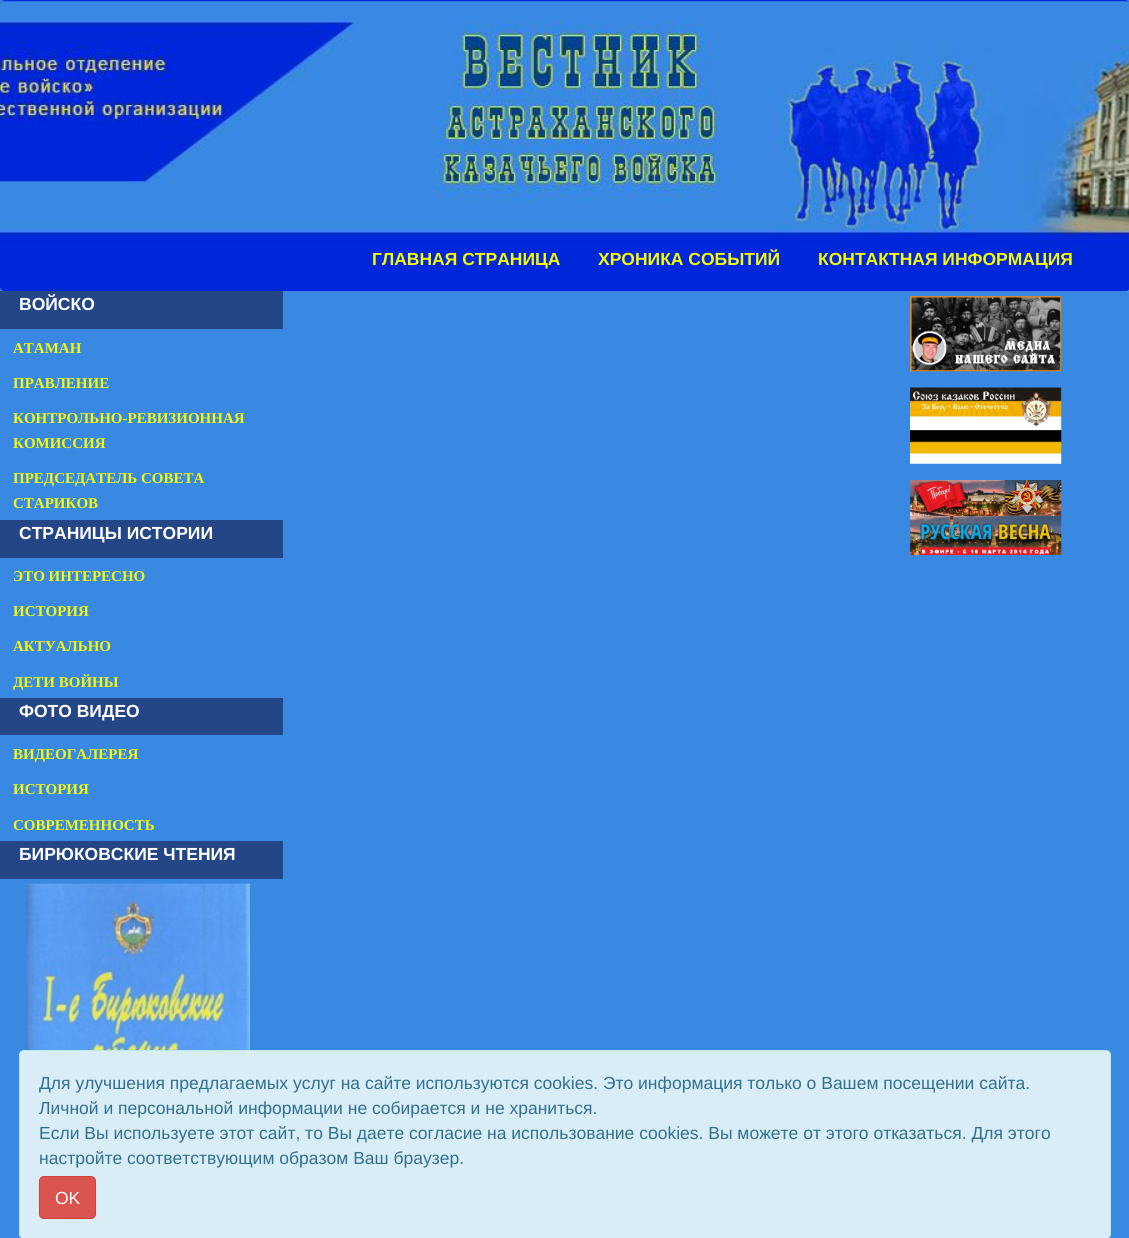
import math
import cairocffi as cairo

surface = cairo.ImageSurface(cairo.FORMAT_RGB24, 1129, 1238)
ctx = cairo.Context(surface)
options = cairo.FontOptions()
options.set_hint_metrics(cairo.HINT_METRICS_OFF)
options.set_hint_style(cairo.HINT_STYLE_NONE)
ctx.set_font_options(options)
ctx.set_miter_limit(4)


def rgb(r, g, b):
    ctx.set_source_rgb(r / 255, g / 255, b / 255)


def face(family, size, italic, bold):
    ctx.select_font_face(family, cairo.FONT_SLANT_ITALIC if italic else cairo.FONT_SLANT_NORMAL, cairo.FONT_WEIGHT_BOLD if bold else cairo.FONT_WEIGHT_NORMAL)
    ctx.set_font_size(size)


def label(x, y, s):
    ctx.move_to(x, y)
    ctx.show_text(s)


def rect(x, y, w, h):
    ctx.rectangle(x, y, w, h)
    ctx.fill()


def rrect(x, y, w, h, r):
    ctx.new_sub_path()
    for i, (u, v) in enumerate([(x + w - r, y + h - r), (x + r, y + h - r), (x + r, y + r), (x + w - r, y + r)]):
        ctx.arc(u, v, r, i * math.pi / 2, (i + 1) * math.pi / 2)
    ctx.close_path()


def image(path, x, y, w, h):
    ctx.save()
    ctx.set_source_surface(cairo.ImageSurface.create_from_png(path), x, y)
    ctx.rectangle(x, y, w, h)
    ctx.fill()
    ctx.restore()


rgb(57, 137, 226)
ctx.paint()
rgb(0, 39, 218)
rrect(0, 0, 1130, 291, 5)
ctx.fill()
image('image0.png', 0, 1, 1129, 291)
face('Liberation Sans', 17.5, 0, 1)
rgb(245, 248, 10)
label(372, 265, 'ГЛАВНАЯ СТРАНИЦА')
label(598, 265, 'ХРОНИКА СОБЫТИЙ')
label(818, 265, 'КОНТАКТНАЯ ИНФОРМАЦИЯ')
rgb(36, 70, 134)
rect(0, 291, 283, 38)
rgb(255, 255, 255)
label(19, 310, 'ВОЙСКО')
face('Liberation Serif', 15, 0, 1)
rgb(245, 248, 10)
label(13, 353, 'АТАМАН')
label(13, 388, 'ПРАВЛЕНИЕ')
label(13, 423, 'КОНТРОЛЬНО-РЕВИЗИОННАЯ')
label(13, 448, 'КОМИССИЯ')
label(13, 483, 'ПРЕДСЕДАТЕЛЬ СОВЕТА')
label(13, 508, 'СТАРИКОВ')
rgb(36, 70, 134)
rect(0, 520, 283, 38)
face('Liberation Sans', 17.5, 0, 1)
rgb(255, 255, 255)
label(19, 539, 'СТРАНИЦЫ ИСТОРИИ')
face('Liberation Serif', 15, 0, 1)
rgb(245, 248, 10)
label(13, 581, 'ЭТО ИНТЕРЕСНО')
label(13, 616, 'ИСТОРИЯ')
label(13, 651, 'АКТУАЛЬНО')
label(13, 687, 'ДЕТИ ВОЙНЫ')
rgb(36, 70, 134)
rect(0, 698, 283, 37)
face('Liberation Sans', 17.5, 0, 1)
rgb(255, 255, 255)
label(19, 717, 'ФОТО ВИДЕО')
face('Liberation Serif', 15, 0, 1)
rgb(245, 248, 10)
label(13, 759, 'ВИДЕОГАЛЕРЕЯ')
label(13, 794, 'ИСТОРИЯ')
label(13, 830, 'СОВРЕМЕННОСТЬ')
rgb(36, 70, 134)
rect(0, 841, 283, 38)
face('Liberation Sans', 17.5, 0, 1)
rgb(255, 255, 255)
label(19, 860, 'БИРЮКОВСКИЕ ЧТЕНИЯ')
image('image1.png', 26, 883, 224, 167)
image('image2.png', 910, 296, 152, 76)
image('image3.png', 910, 387, 152, 77)
image('image4.png', 910, 480, 152, 75)
rgb(217, 237, 247)
rrect(19.5, 1050.5, 1091, 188, 4.5)
ctx.fill_preserve()
rgb(188, 232, 241)
ctx.set_line_width(1)
ctx.stroke()
face('Liberation Sans', 17.5, 0, 0)
rgb(49, 112, 143)
label(39, 1089, 'Для улучшения предлагаемых услуг на сайте используются cookies. Это информация только о Вашем посещении сайта.')
label(39, 1114, 'Личной и персональной информации не собирается и не храниться.')
label(39, 1139, 'Если Вы используете этот сайт, то Вы даете согласие на использование cookies. Вы можете от этого отказаться. Для этого')
label(39, 1164, 'настройте соответствующим образом Ваш браузер.')
rgb(217, 83, 79)
rrect(39.5, 1176.5, 56, 42, 4.5)
ctx.fill_preserve()
rgb(212, 63, 58)
ctx.stroke()
rgb(255, 255, 255)
label(55, 1204, 'OK')
surface.write_to_png('render.png')
